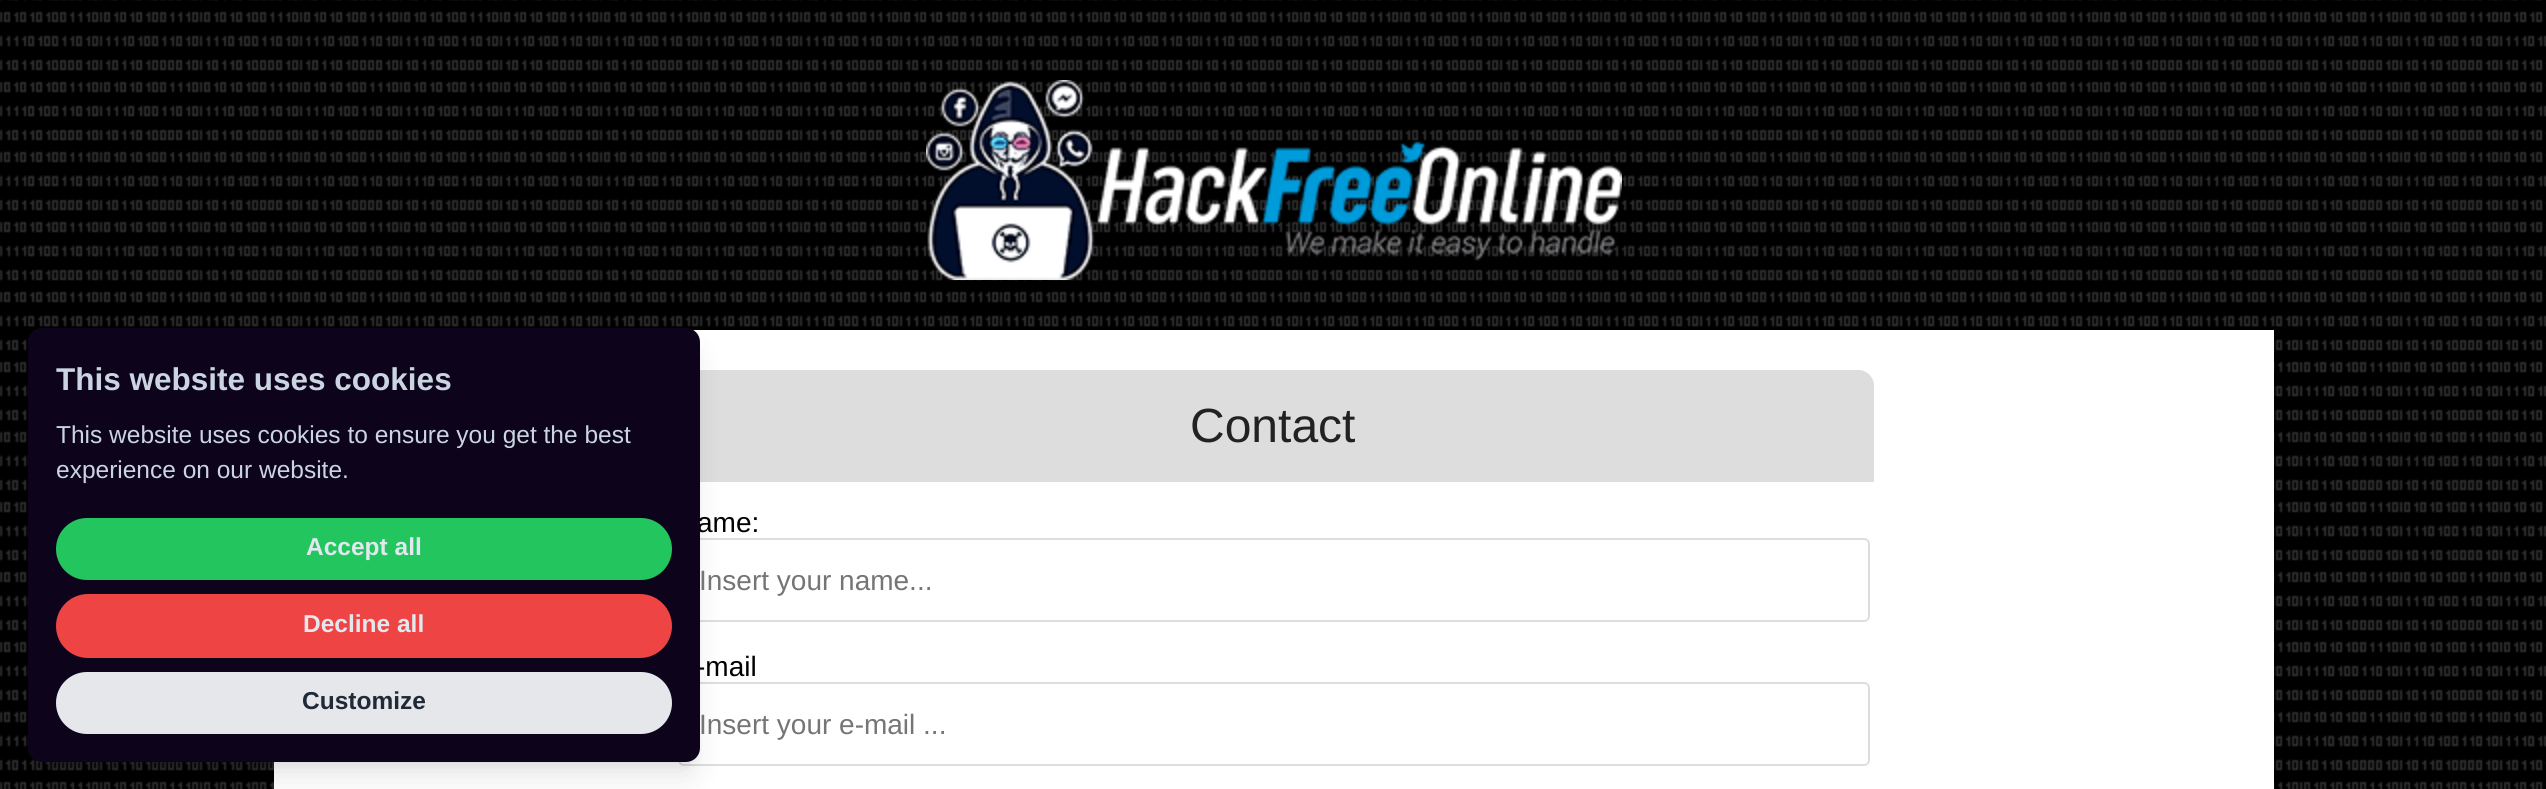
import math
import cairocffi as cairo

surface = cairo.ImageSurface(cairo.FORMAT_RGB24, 2546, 789)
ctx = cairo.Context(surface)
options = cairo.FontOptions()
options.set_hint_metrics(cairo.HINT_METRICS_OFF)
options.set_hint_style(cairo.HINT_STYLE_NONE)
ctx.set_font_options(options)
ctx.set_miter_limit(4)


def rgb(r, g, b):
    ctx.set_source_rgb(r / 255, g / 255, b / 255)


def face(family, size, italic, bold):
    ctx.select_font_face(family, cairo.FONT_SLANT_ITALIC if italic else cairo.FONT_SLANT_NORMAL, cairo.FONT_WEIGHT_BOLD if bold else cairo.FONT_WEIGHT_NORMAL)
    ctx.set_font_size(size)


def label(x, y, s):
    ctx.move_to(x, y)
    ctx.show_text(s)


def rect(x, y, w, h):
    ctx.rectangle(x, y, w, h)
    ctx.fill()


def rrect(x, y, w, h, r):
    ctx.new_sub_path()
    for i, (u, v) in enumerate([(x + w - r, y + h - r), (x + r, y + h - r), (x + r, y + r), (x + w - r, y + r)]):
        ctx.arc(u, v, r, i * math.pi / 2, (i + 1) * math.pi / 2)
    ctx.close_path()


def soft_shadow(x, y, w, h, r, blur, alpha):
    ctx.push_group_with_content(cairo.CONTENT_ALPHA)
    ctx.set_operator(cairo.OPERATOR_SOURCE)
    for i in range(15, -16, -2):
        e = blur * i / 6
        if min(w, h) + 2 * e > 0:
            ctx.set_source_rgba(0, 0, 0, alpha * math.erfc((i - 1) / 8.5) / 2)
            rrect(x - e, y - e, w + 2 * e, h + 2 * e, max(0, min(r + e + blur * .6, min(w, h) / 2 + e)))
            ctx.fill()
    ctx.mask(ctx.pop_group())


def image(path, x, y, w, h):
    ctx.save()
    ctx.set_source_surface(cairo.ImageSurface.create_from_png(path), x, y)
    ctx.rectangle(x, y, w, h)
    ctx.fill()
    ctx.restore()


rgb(255, 255, 255)
ctx.paint()
image('image0.png', 0, 0, 2546, 789)
image('image1.png', 926, 80, 696, 200)
rgb(255, 255, 255)
rect(274, 330, 2000, 459)
rgb(221, 221, 221)
ctx.new_path()
ctx.move_to(690, 370)
ctx.line_to(1858, 370)
ctx.curve_to(1867, 370, 1874, 377, 1874, 386)
ctx.line_to(1874, 482)
ctx.line_to(674, 482)
ctx.line_to(674, 386)
ctx.curve_to(674, 377, 681, 370, 690, 370)
ctx.close_path()
ctx.fill()
rrect(679, 539, 1190, 82, 5)
ctx.stroke()
rrect(679, 683, 1190, 82, 5)
ctx.stroke()
rgb(0, 0, 0)
soft_shadow(36, 344, 656, 418, 6, 6, 0.1)
soft_shadow(34, 354, 660, 422, 8, 15, 0.1)
face('Liberation Sans', 28, 0, 0)
rgb(0, 0, 0)
label(697, 532, 'ame:')
label(696, 676, '-mail')
rgb(13, 4, 27)
rrect(28, 328, 672, 434, 14)
ctx.fill()
face('Liberation Sans', 31.5, 0, 1)
rgb(203, 213, 225)
label(56, 390, 'This website uses cookies')
face('Liberation Sans', 24.5, 0, 0)
label(56, 443, 'This website uses cookies to ensure you get the best')
label(56, 478, 'experience on our website.')
rgb(34, 197, 94)
rrect(56, 518, 616, 62, 31)
ctx.fill()
face('Liberation Sans', 24.5, 0, 1)
rgb(226, 232, 240)
label(306, 555, 'Accept all')
rgb(239, 68, 68)
rrect(56, 594, 616, 64, 32)
ctx.fill()
rgb(226, 232, 240)
label(303, 632, 'Decline all')
rgb(229, 231, 235)
rrect(56, 672, 616, 62, 31)
ctx.fill()
rgb(31, 41, 55)
label(302, 709, 'Customize')
face('Liberation Sans', 48, 0, 0)
rgb(34, 34, 34)
label(1190, 442, 'Contact')
face('Liberation Sans', 28, 0, 0)
rgb(117, 117, 117)
label(699, 590, 'Insert your name...')
label(699, 734, 'Insert your e-mail ...')
surface.write_to_png('render.png')
